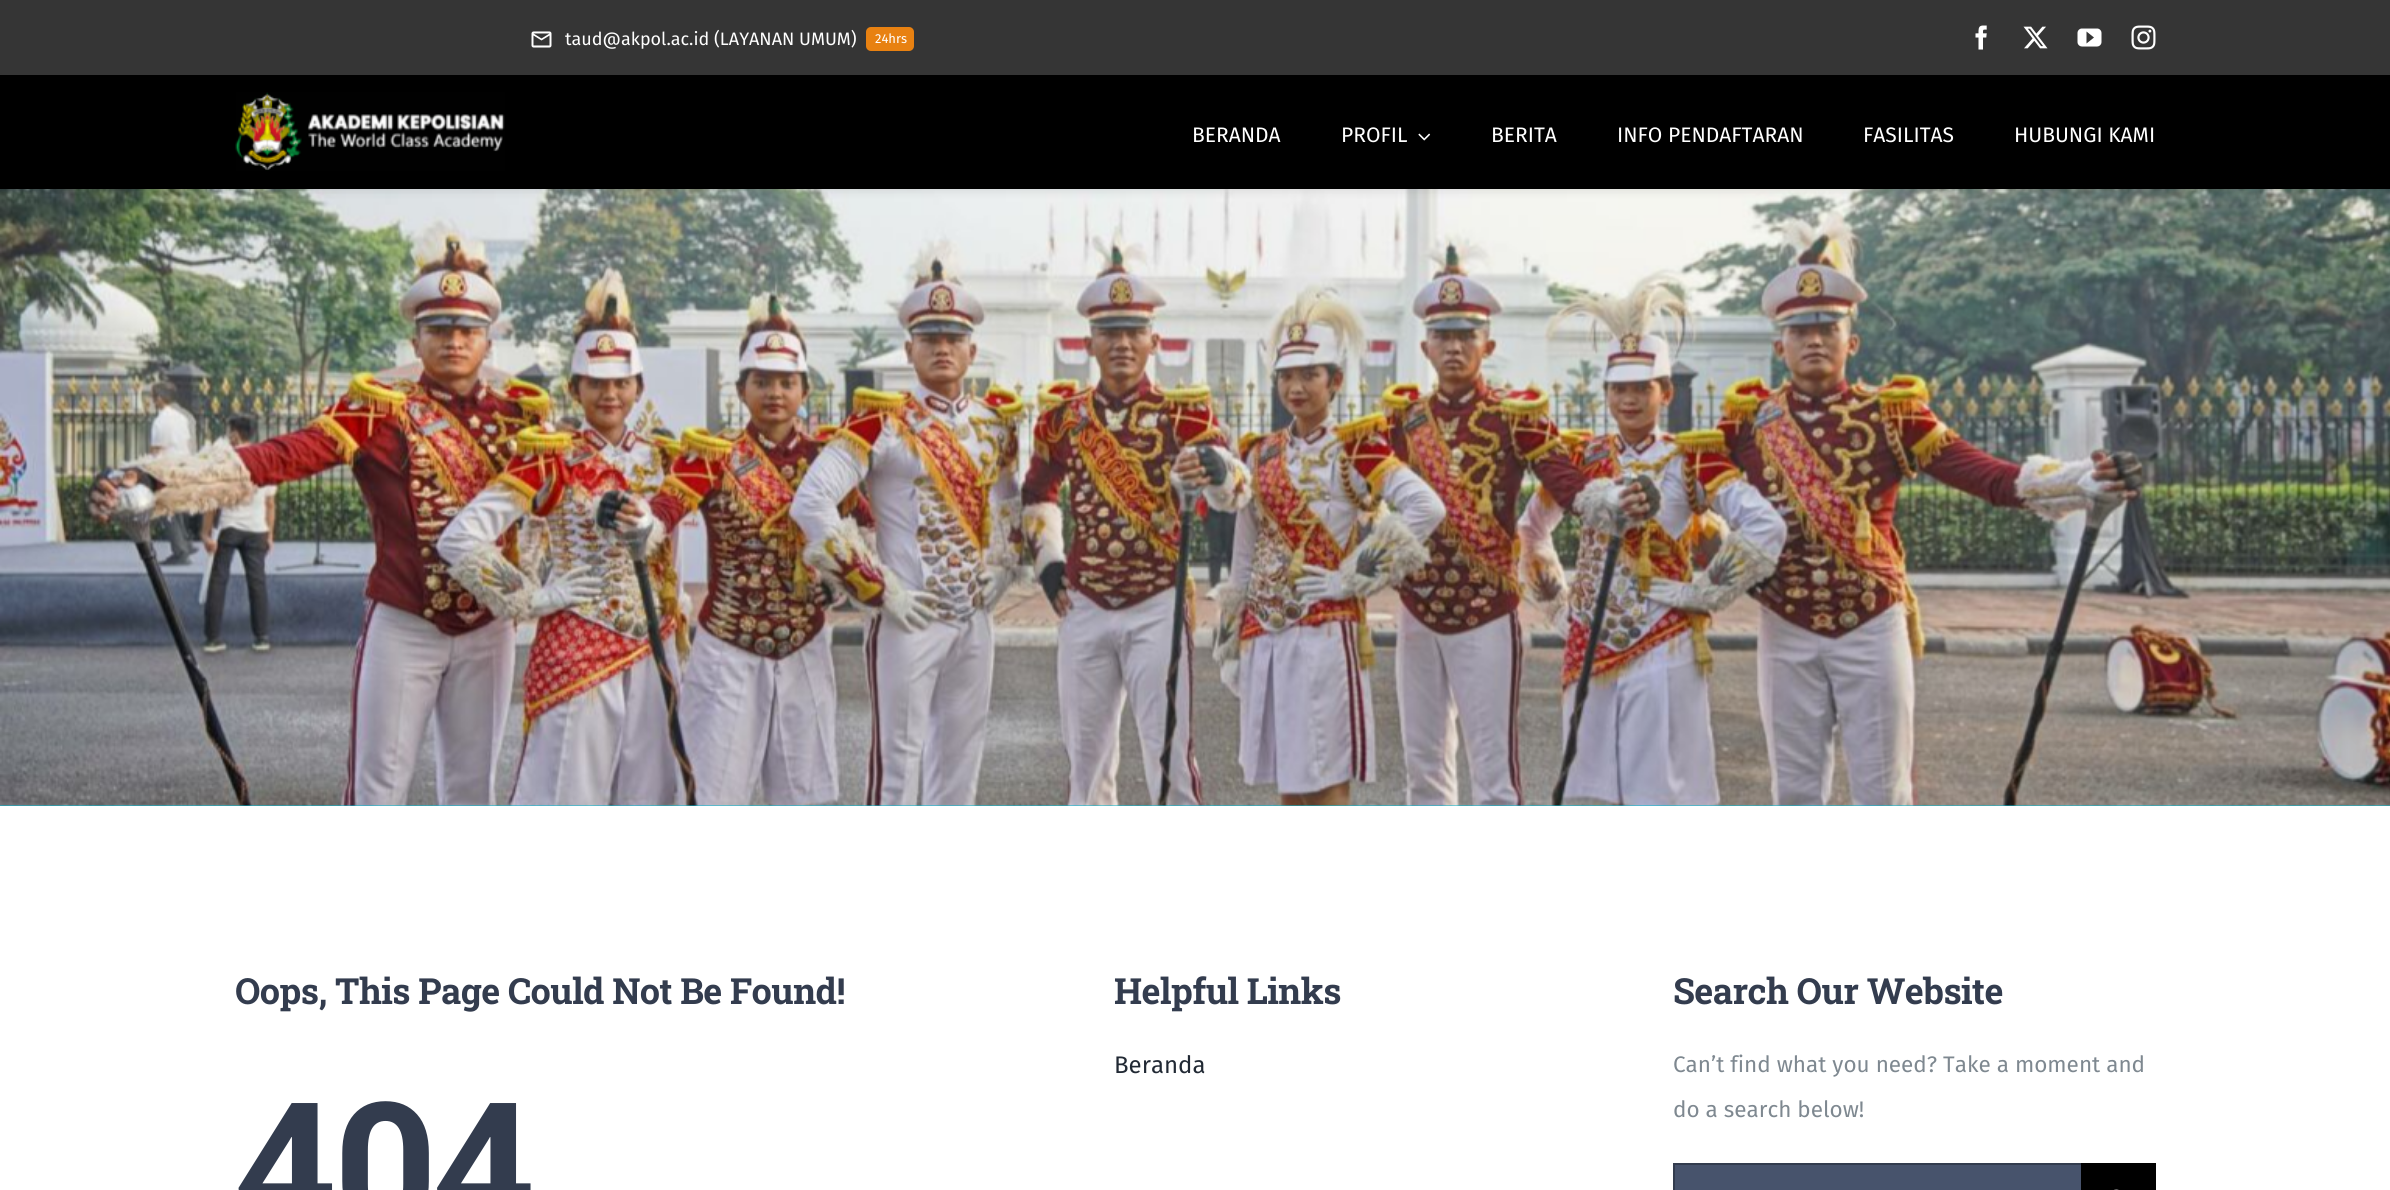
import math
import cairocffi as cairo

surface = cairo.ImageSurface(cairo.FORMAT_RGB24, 2390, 1190)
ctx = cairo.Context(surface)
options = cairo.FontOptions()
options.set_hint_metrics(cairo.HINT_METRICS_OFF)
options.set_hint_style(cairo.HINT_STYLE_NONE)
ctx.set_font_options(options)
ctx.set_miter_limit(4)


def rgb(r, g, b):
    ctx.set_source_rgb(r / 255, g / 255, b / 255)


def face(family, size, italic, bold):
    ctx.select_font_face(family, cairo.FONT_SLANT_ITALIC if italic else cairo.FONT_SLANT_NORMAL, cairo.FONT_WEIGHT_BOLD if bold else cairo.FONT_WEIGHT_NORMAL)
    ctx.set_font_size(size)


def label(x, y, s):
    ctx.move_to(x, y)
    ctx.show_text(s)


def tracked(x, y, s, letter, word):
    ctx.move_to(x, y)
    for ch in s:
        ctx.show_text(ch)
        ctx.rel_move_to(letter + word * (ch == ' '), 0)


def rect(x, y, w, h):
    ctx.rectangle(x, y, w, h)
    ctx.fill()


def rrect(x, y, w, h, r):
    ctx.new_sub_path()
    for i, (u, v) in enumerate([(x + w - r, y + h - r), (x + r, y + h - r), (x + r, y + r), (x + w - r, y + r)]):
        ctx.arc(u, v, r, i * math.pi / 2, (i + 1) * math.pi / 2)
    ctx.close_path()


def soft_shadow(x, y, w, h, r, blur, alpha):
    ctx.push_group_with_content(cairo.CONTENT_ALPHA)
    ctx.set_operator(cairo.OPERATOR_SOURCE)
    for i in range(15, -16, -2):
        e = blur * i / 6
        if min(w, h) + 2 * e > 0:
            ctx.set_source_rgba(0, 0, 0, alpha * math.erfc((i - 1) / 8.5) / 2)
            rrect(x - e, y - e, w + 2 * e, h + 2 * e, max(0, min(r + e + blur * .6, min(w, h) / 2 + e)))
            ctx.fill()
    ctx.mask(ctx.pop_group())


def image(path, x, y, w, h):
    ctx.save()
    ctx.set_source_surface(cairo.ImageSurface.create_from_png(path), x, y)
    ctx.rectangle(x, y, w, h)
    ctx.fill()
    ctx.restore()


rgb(255, 255, 255)
ctx.paint()
rgb(53, 53, 53)
rect(0, 0, 2390, 75)
image('image0.png', 531, 31, 21, 17)
face('Fira Sans', 18, 0, 0)
rgb(255, 255, 255)
label(565, 45, 'taud@akpol.ac.id (LAYANAN UMUM)')
rgb(232, 129, 17)
rrect(866, 27, 48, 24, 5)
ctx.fill()
face('Fira Sans', 13, 0, 0)
rgb(255, 255, 255)
label(875, 43, '24hrs')
image('image1.png', 1975, 25, 12, 25)
image('image2.png', 2023, 26, 25, 23)
image('image3.png', 2077, 28, 25, 19)
image('image4.png', 2131, 25, 25, 25)
rgb(0, 188, 212)
rect(0, 805, 2390, 1)
image('image7.png', 0, 189, 2390, 617)
rgb(33, 33, 33)
soft_shadow(0, 78, 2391, 114, 0, 4, 0.1)
rgb(0, 0, 0)
rect(0, 75, 2390, 114)
image('image5.png', 235, 92, 270, 79)
face('Fira Sans', 21, 0, 0)
rgb(255, 255, 255)
label(1192, 142, 'BERANDA')
label(1341, 142, 'PROFIL')
image('image6.png', 1418, 133, 13, 8)
label(1491, 142, 'BERITA')
label(1617, 142, 'INFO PENDAFTARAN')
label(1863, 142, 'FASILITAS')
label(2014, 142, 'HUBUNGI KAMI')
face('Roboto Slab', 36, 0, 1)
rgb(51, 60, 78)
tracked(235, 1004, 'Oops, This Page Could Not Be Found!', -0.55, 0)
face('Roboto Slab', 180, 0, 1)
tracked(235, 1231, '404', -3, 0)
face('Roboto Slab', 36, 0, 1)
tracked(1114, 1004, 'Helpful Links', -0.55, 0)
face('Fira Sans', 24, 0, 0)
rgb(33, 41, 52)
label(1114, 1073, 'Beranda')
face('Roboto Slab', 36, 0, 1)
rgb(51, 60, 78)
tracked(1673, 1004, 'Search Our Website', -0.55, 0)
face('Fira Sans', 22.5, 0, 0)
rgb(126, 136, 144)
label(1673, 1072, 'Can’t find what you need? Take a moment and')
label(1673, 1117, 'do a search below!')
rgb(71, 83, 108)
rect(1675, 1165, 406, 25)
rgb(51, 60, 78)
rect(1673, 1163, 408, 2)
rect(1673, 1163, 2, 27)
rgb(0, 0, 0)
rect(2081, 1163, 75, 27)
image('image8.png', 2114, 1189, 5, 1)
surface.write_to_png('render.png')
